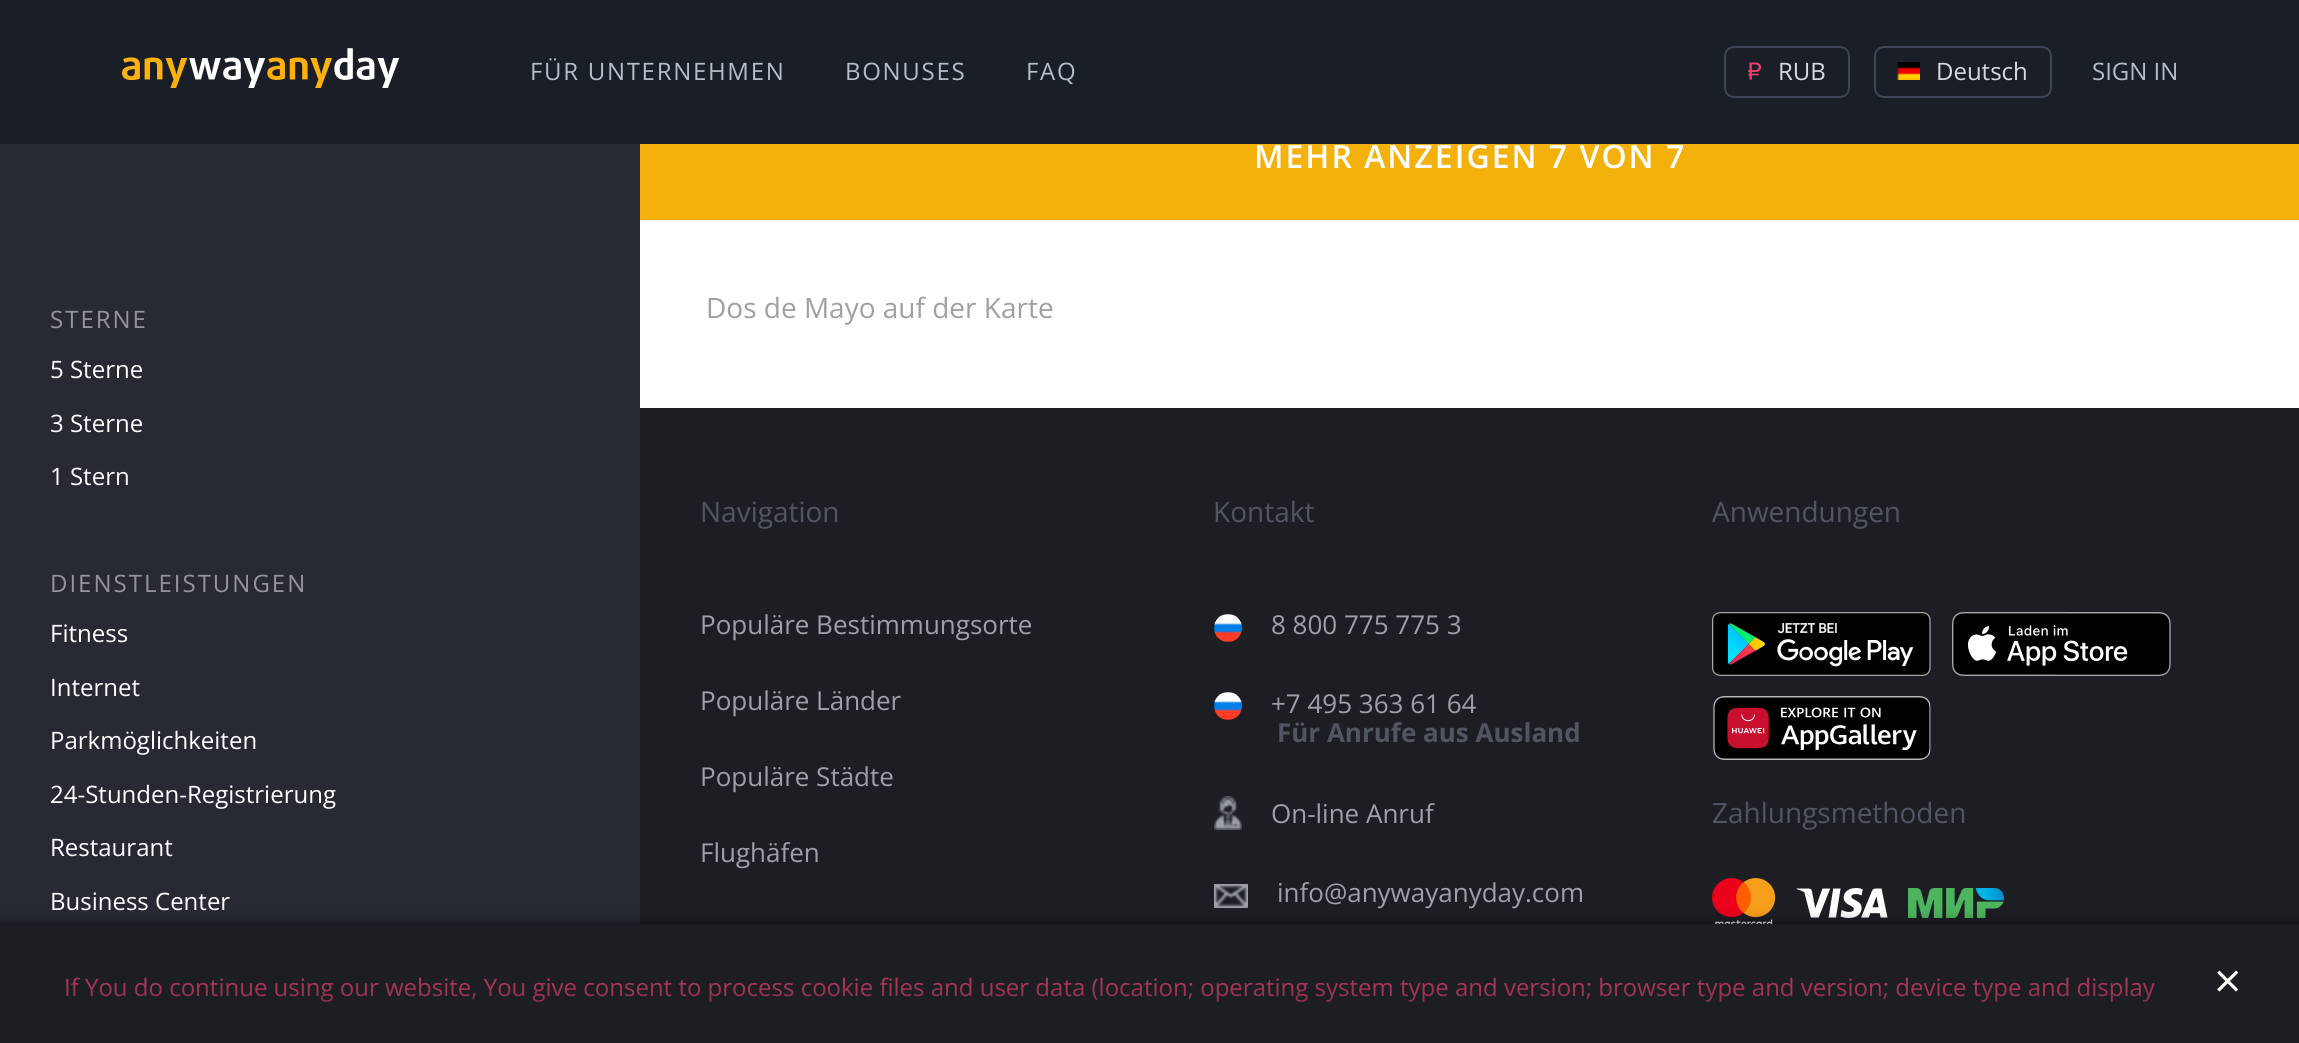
import math
import cairocffi as cairo

surface = cairo.ImageSurface(cairo.FORMAT_RGB24, 2299, 1043)
ctx = cairo.Context(surface)
options = cairo.FontOptions()
options.set_hint_metrics(cairo.HINT_METRICS_OFF)
options.set_hint_style(cairo.HINT_STYLE_NONE)
ctx.set_font_options(options)
ctx.set_miter_limit(4)


def rgb(r, g, b):
    ctx.set_source_rgb(r / 255, g / 255, b / 255)


def face(family, size, italic, bold):
    ctx.select_font_face(family, cairo.FONT_SLANT_ITALIC if italic else cairo.FONT_SLANT_NORMAL, cairo.FONT_WEIGHT_BOLD if bold else cairo.FONT_WEIGHT_NORMAL)
    ctx.set_font_size(size)


def label(x, y, s):
    ctx.move_to(x, y)
    ctx.show_text(s)


def tracked(x, y, s, letter, word):
    ctx.move_to(x, y)
    for ch in s:
        ctx.show_text(ch)
        ctx.rel_move_to(letter + word * (ch == ' '), 0)


def rect(x, y, w, h):
    ctx.rectangle(x, y, w, h)
    ctx.fill()


def rrect(x, y, w, h, r):
    ctx.new_sub_path()
    for i, (u, v) in enumerate([(x + w - r, y + h - r), (x + r, y + h - r), (x + r, y + r), (x + w - r, y + r)]):
        ctx.arc(u, v, r, i * math.pi / 2, (i + 1) * math.pi / 2)
    ctx.close_path()


def soft_shadow(x, y, w, h, r, blur, alpha):
    ctx.push_group_with_content(cairo.CONTENT_ALPHA)
    ctx.set_operator(cairo.OPERATOR_SOURCE)
    for i in range(15, -16, -2):
        e = blur * i / 6
        if min(w, h) + 2 * e > 0:
            ctx.set_source_rgba(0, 0, 0, alpha * math.erfc((i - 1) / 8.5) / 2)
            rrect(x - e, y - e, w + 2 * e, h + 2 * e, max(0, min(r + e + blur * .6, min(w, h) / 2 + e)))
            ctx.fill()
    ctx.mask(ctx.pop_group())


def image(path, x, y, w, h):
    ctx.save()
    ctx.set_source_surface(cairo.ImageSurface.create_from_png(path), x, y)
    ctx.rectangle(x, y, w, h)
    ctx.fill()
    ctx.restore()


rgb(39, 42, 51)
ctx.paint()
rgb(25, 30, 39)
rect(0, 0, 2299, 144)
image('image0.png', 122, 48, 278, 40)
face('Open Sans', 24, 0, 0)
rgb(180, 189, 201)
tracked(530, 80, 'FÜR UNTERNEHMEN', 1.7, 0)
tracked(845, 80, 'BONUSES', 1.7, 0)
tracked(1026, 80, 'FAQ', 1.7, 0)
rrect(1725, 47, 124, 50, 9)
rgb(63, 69, 84)
ctx.stroke()
image('image1.png', 1748, 62, 13, 18)
rgb(214, 217, 226)
label(1778, 80, 'RUB')
rrect(1875, 47, 176, 50, 9)
rgb(63, 69, 84)
ctx.stroke()
image('image2.png', 1897, 62, 23, 18)
rgb(214, 217, 226)
label(1936, 80, 'Deutsch')
rgb(180, 189, 201)
label(2092, 80, 'SIGN IN')
rgb(147, 149, 153)
tracked(50, 328, 'STERNE', 2, 0)
rgb(255, 255, 255)
label(50, 378, '5 Sterne')
label(50, 432, '3 Sterne')
label(50, 485, '1 Stern')
rgb(147, 149, 153)
tracked(50, 592, 'DIENSTLEISTUNGEN', 2, 0)
rgb(255, 255, 255)
label(50, 642, 'Fitness')
label(50, 696, 'Internet')
label(50, 749, 'Parkmöglichkeiten')
label(50, 803, '24-Stunden-Registrierung')
label(50, 856, 'Restaurant')
label(50, 910, 'Business Center')
rect(640, 220, 1659, 188)
rgb(245, 177, 11)
rect(640, 144, 1659, 76)
face('Open Sans SemiBold', 32, 0, 0)
rgb(255, 255, 255)
tracked(1254, 168, 'MEHR ANZEIGEN 7 VON 7', 2, 0)
face('Open Sans', 28, 0, 0)
rgb(157, 160, 166)
label(706, 318, 'Dos de Mayo auf der Karte')
rgb(28, 30, 36)
rect(640, 408, 1659, 516)
rgb(80, 86, 97)
label(700, 522, 'Navigation')
face('Open Sans', 26, 0, 0)
rgb(157, 160, 166)
label(700, 634, 'Populäre Bestimmungsorte')
label(700, 710, 'Populäre Länder')
label(700, 786, 'Populäre Städte')
label(700, 862, 'Flughäfen')
face('Open Sans', 28, 0, 0)
rgb(80, 86, 97)
label(1213, 522, 'Kontakt')
image('image3.png', 1214, 614, 28, 28)
face('Open Sans', 26, 0, 0)
rgb(157, 160, 166)
label(1271, 634, '8 800 775 775 3')
image('image3.png', 1214, 692, 28, 28)
label(1271, 713, '+7 495 363 61 64')
face('Open Sans', 26, 0, 1)
rgb(80, 86, 97)
label(1277, 742, 'Für Anrufe aus Ausland')
face('Open Sans', 28, 0, 0)
label(1712, 522, 'Anwendungen')
image('image4.png', 1712, 612, 219, 64)
image('image5.png', 1952, 612, 219, 64)
image('image6.png', 1713, 696, 218, 64)
image('image7.png', 1214, 796, 28, 34)
face('Open Sans', 26, 0, 0)
rgb(157, 160, 166)
label(1271, 823, 'On-line Anruf')
image('image8.png', 1214, 884, 34, 24)
label(1277, 902, 'info@anywayanyday.com')
face('Open Sans', 28, 0, 0)
rgb(80, 86, 97)
label(1712, 823, 'Zahlungsmethoden')
image('image9.png', 1712, 878, 64, 46)
image('image10.png', 1796, 888, 92, 30)
image('image11.png', 1908, 888, 96, 30)
rgb(0, 0, 0)
soft_shadow(0, 924, 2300, 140, 0, 7, 0.6)
rgb(28, 30, 36)
rect(0, 924, 2299, 119)
face('Open Sans', 24, 0, 0)
rgb(238, 64, 112)
label(64, 996, 'If You do continue using our website, You give consent to process cookie files and user data (location; operating system type and version; browser type and version; device type and display')
face('Open Sans', 48, 0, 0)
rgb(255, 255, 255)
label(2214, 998, '×')
gradient = cairo.LinearGradient(1150, 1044, 1150, 944)
gradient.add_color_stop_rgba(0, 0.11, 0.118, 0.141, 0.8)
gradient.add_color_stop_rgba(1, 0.11, 0.118, 0.141, 0)
ctx.set_source(gradient)
rect(66, 977, 2089, 25)
surface.write_to_png('render.png')
